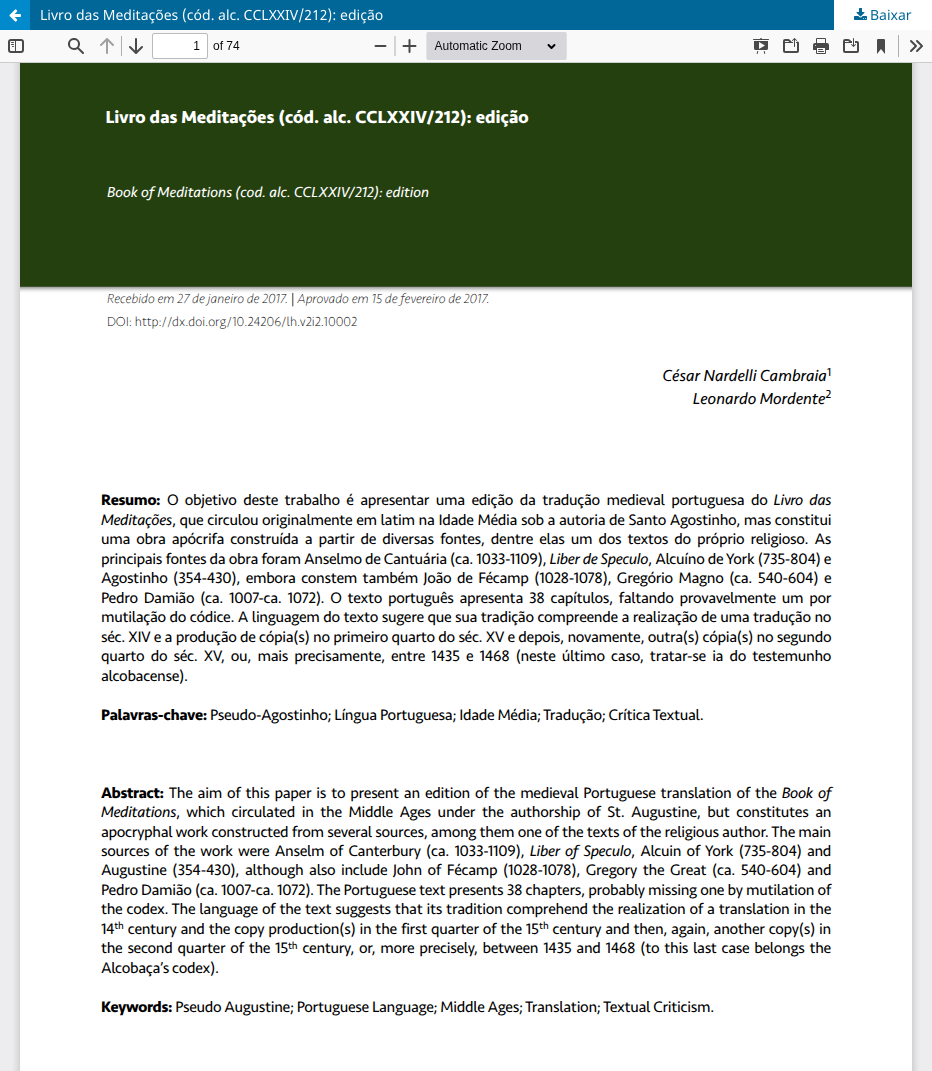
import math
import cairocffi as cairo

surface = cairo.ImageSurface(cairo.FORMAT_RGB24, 932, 1071)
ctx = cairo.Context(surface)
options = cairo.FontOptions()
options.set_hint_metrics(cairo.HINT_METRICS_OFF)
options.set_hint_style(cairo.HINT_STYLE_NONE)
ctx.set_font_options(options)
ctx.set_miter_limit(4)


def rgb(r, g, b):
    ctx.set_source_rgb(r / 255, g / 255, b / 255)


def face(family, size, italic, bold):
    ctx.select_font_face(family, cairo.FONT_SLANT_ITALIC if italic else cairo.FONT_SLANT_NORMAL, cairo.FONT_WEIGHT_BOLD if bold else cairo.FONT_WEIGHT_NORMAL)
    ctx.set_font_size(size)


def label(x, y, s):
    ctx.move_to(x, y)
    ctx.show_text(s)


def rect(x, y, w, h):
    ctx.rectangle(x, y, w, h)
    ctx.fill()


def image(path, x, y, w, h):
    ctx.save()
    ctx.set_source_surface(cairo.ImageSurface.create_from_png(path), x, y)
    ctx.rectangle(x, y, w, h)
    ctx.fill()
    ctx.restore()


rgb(255, 255, 255)
ctx.paint()
rgb(0, 103, 152)
rect(30, 0, 804, 30)
rgb(0, 138, 203)
rect(0, 0, 30, 30)
image('image0.png', 9, 9, 12, 13)
face('Noto Sans', 14, 0, 0)
rgb(255, 255, 255)
label(40, 20, 'Livro das Meditações (cód. alc. CCLXXIV/212): edição')
image('image1.png', 854, 8, 13, 12)
rgb(0, 103, 152)
label(870, 20, 'Baixar')
image('image2.png', 0, 30, 932, 1041)
surface.write_to_png('render.png')
